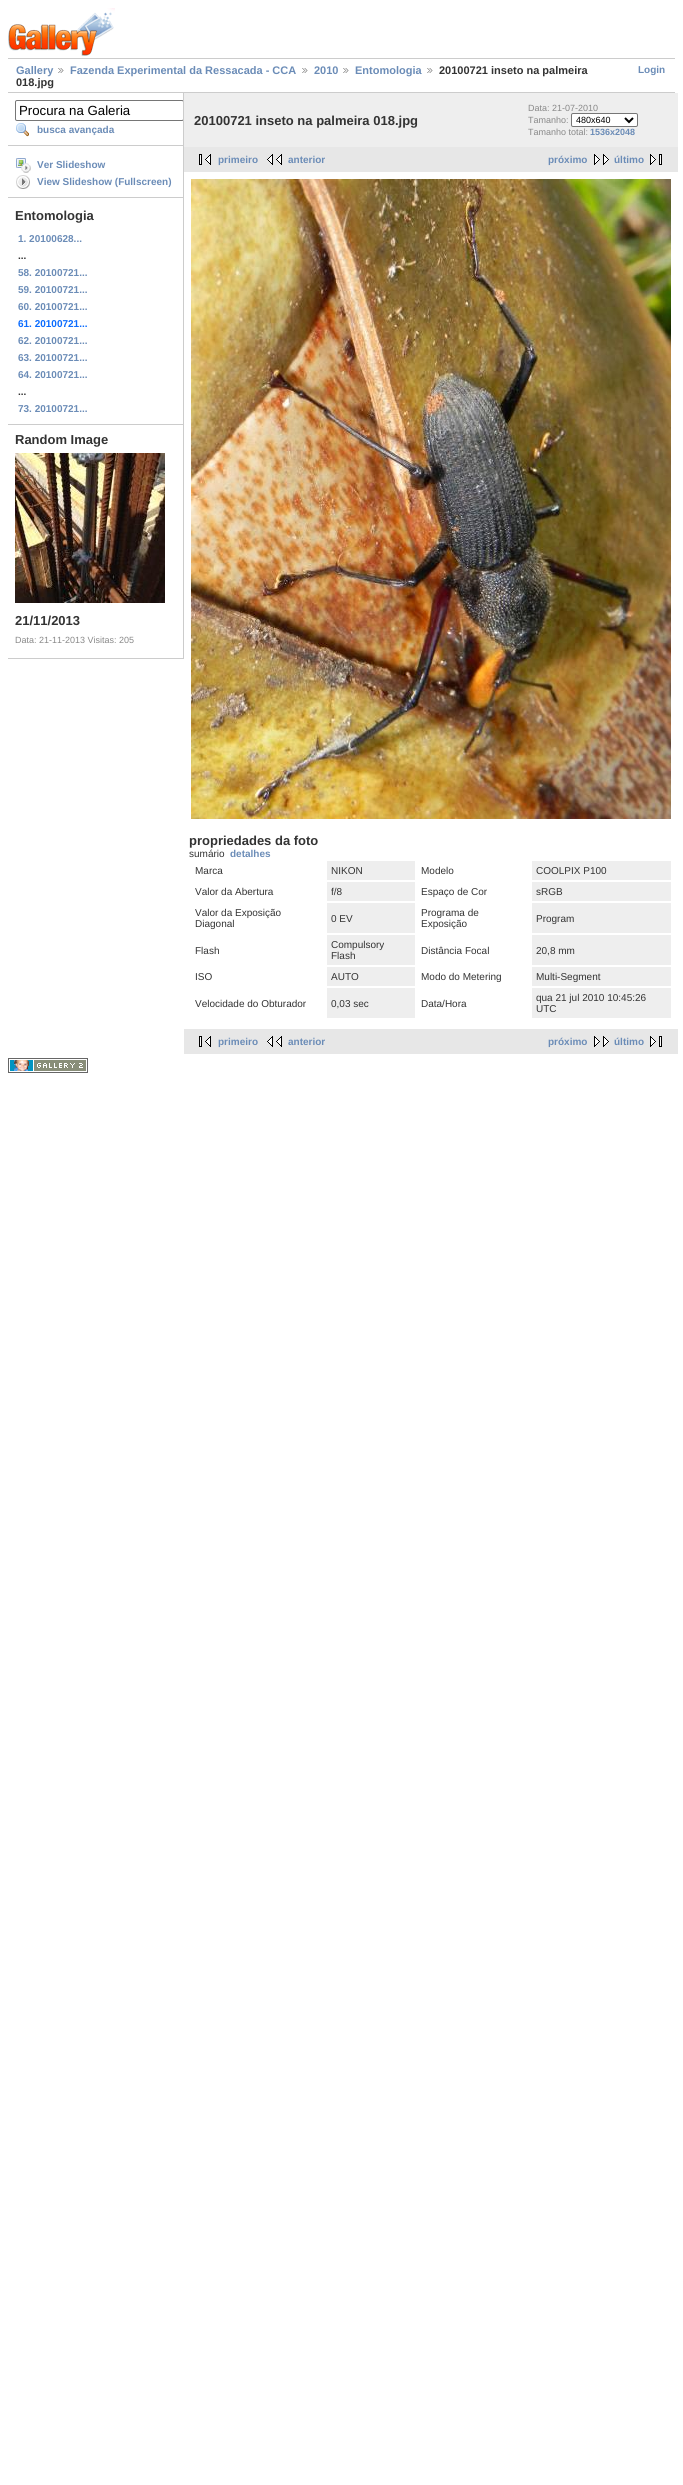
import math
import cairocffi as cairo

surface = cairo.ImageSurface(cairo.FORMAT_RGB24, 683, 2485)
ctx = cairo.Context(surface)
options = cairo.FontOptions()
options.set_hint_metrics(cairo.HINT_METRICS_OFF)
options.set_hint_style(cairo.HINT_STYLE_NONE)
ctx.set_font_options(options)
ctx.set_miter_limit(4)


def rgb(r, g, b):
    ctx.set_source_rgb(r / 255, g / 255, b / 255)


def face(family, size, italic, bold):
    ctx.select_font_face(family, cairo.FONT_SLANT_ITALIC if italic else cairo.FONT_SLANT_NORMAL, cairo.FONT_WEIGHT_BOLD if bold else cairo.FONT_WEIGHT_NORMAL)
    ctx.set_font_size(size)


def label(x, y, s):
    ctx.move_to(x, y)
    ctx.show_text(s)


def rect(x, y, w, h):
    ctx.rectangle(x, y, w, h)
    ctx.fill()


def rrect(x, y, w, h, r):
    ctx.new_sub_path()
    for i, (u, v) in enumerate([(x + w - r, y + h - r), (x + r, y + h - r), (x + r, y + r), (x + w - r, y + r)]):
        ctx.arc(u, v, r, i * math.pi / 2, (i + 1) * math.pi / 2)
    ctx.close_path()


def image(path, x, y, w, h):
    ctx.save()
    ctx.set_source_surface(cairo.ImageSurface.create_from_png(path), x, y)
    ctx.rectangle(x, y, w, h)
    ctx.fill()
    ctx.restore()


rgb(255, 255, 255)
ctx.paint()
image('image0.png', 8, 8, 107, 48)
rgb(204, 204, 204)
rect(8, 58, 667, 1)
rect(8, 92, 667, 1)
face('Liberation Sans', 11, 0, 1)
rgb(107, 140, 183)
label(16, 74, 'Gallery')
image('image1.png', 58, 68, 6, 5)
label(70, 74, 'Fazenda Experimental da Ressacada - CCA')
image('image1.png', 302, 68, 6, 5)
label(314, 74, '2010')
image('image1.png', 343, 68, 6, 5)
label(355, 74, 'Entomologia')
image('image1.png', 427, 68, 6, 5)
rgb(51, 51, 51)
label(439, 74, '20100721 inseto na palmeira')
label(16, 86, '018.jpg')
face('Liberation Sans', 10, 0, 1)
rgb(107, 140, 183)
label(638, 73, 'Login')
rgb(204, 204, 204)
rect(183, 93, 1, 566)
rect(8, 145, 175, 1)
ctx.save()
ctx.rectangle(8, 93, 175, 566)
ctx.clip()
rrect(15.5, 100.5, 168, 20, 1.5)
rgb(118, 118, 118)
ctx.set_line_width(1)
ctx.stroke()
ctx.restore()
face('Liberation Sans', 13.25, 0, 0)
rgb(0, 0, 0)
label(19, 115, 'Procura na Galeria')
image('image2.png', 16, 123, 13, 14)
face('Liberation Sans', 10, 0, 1)
rgb(107, 140, 183)
label(37, 133, 'busca avançada')
rgb(204, 204, 204)
rect(8, 197, 175, 1)
image('image3.png', 16, 158, 15, 15)
rgb(107, 140, 183)
label(37, 168, 'Ver Slideshow')
image('image4.png', 16, 175, 14, 14)
label(37, 185, 'View Slideshow (Fullscreen)')
rgb(204, 204, 204)
rect(8, 424, 175, 1)
face('Liberation Sans', 13, 0, 1)
rgb(51, 51, 51)
label(15, 220, 'Entomologia')
face('Liberation Sans', 10, 0, 1)
rgb(107, 140, 183)
label(18, 242, '1. 20100628...')
rgb(51, 51, 51)
label(18, 259, '...')
rgb(107, 140, 183)
label(18, 276, '58. 20100721...')
label(18, 293, '59. 20100721...')
label(18, 310, '60. 20100721...')
rgb(11, 108, 255)
label(18, 327, '61. 20100721...')
rgb(107, 140, 183)
label(18, 344, '62. 20100721...')
label(18, 361, '63. 20100721...')
label(18, 378, '64. 20100721...')
rgb(51, 51, 51)
label(18, 395, '...')
rgb(107, 140, 183)
label(18, 412, '73. 20100721...')
rgb(204, 204, 204)
rect(8, 658, 175, 1)
face('Liberation Sans', 13, 0, 1)
rgb(51, 51, 51)
label(15, 444, 'Random Image')
image('image5.png', 15, 453, 150, 150)
label(15, 625, '21/11/2013')
face('Liberation Sans', 9, 0, 0)
rgb(136, 136, 136)
label(15, 643, 'Data: 21-11-2013 Visitas: 205')
rgb(238, 238, 238)
rect(184, 93, 494, 54)
face('Liberation Sans', 13, 0, 1)
rgb(51, 51, 51)
label(194, 125, '20100721 inseto na palmeira 018.jpg')
face('Liberation Sans', 9, 0, 0)
rgb(136, 136, 136)
label(528, 111, 'Data: 21-07-2010')
label(528, 123, 'Tamanho:')
rgb(255, 255, 255)
rrect(571.5, 113.5, 66, 13, 1.5)
ctx.fill_preserve()
rgb(118, 118, 118)
ctx.set_line_width(1)
ctx.stroke()
ctx.new_path()
ctx.move_to(625, 118)
ctx.line_to(629, 122)
ctx.line_to(633, 118)
rgb(0, 0, 0)
ctx.set_line_width(2)
ctx.stroke()
label(576, 123, '480x640')
rgb(136, 136, 136)
label(528, 135, 'Tamanho total:')
face('Liberation Sans', 9, 0, 1)
rgb(107, 140, 183)
label(590, 135, '1536x2048')
rgb(231, 231, 231)
rect(184, 147, 494, 25)
image('image6.png', 199, 154, 12, 11)
face('Liberation Sans', 10, 0, 1)
rgb(107, 140, 183)
label(218, 163, 'primeiro')
image('image7.png', 267, 154, 15, 11)
label(288, 163, 'anterior')
label(548, 163, 'próximo')
image('image8.png', 594, 154, 15, 11)
label(614, 163, 'último')
image('image9.png', 650, 154, 12, 11)
image('image10.png', 191, 179, 480, 640)
face('Liberation Sans', 13, 0, 1)
rgb(51, 51, 51)
label(189, 845, 'propriedades da foto')
face('Liberation Sans', 10, 0, 0)
label(189, 857, 'sumário')
face('Liberation Sans', 10, 0, 1)
rgb(107, 140, 183)
label(230, 857, 'detalhes')
face('Liberation Sans', 10, 0, 0)
rgb(51, 51, 51)
label(195, 874, 'Marca')
rgb(238, 238, 238)
rect(327, 861, 88, 19)
rgb(51, 51, 51)
label(331, 874, 'NIKON')
label(421, 874, 'Modelo')
rgb(238, 238, 238)
rect(532, 861, 139, 19)
rgb(51, 51, 51)
label(536, 874, 'COOLPIX P100')
label(195, 895, 'Valor da Abertura')
rgb(238, 238, 238)
rect(327, 882, 88, 19)
rgb(51, 51, 51)
label(331, 895, 'f/8')
label(421, 895, 'Espaço de Cor')
rgb(238, 238, 238)
rect(532, 882, 139, 19)
rgb(51, 51, 51)
label(536, 895, 'sRGB')
label(195, 916, 'Valor da Exposição')
label(195, 927, 'Diagonal')
rgb(238, 238, 238)
rect(327, 903, 88, 30)
rgb(51, 51, 51)
label(331, 922, '0 EV')
label(421, 916, 'Programa de')
label(421, 927, 'Exposição')
rgb(238, 238, 238)
rect(532, 903, 139, 30)
rgb(51, 51, 51)
label(536, 922, 'Program')
label(195, 954, 'Flash')
rgb(238, 238, 238)
rect(327, 935, 88, 30)
rgb(51, 51, 51)
label(331, 948, 'Compulsory')
label(331, 959, 'Flash')
label(421, 954, 'Distância Focal')
rgb(238, 238, 238)
rect(532, 935, 139, 30)
rgb(51, 51, 51)
label(536, 954, '20,8 mm')
label(195, 980, 'ISO')
rgb(238, 238, 238)
rect(327, 967, 88, 19)
rgb(51, 51, 51)
label(331, 980, 'AUTO')
label(421, 980, 'Modo do Metering')
rgb(238, 238, 238)
rect(532, 967, 139, 19)
rgb(51, 51, 51)
label(536, 980, 'Multi-Segment')
label(195, 1007, 'Velocidade do Obturador')
rgb(238, 238, 238)
rect(327, 988, 88, 30)
rgb(51, 51, 51)
label(331, 1007, '0,03 sec')
label(421, 1007, 'Data/Hora')
rgb(238, 238, 238)
rect(532, 988, 139, 30)
rgb(51, 51, 51)
label(536, 1001, 'qua 21 jul 2010 10:45:26')
label(536, 1012, 'UTC')
rgb(231, 231, 231)
rect(184, 1029, 494, 25)
image('image6.png', 199, 1036, 12, 11)
face('Liberation Sans', 10, 0, 1)
rgb(107, 140, 183)
label(218, 1045, 'primeiro')
image('image7.png', 267, 1036, 15, 11)
label(288, 1045, 'anterior')
label(548, 1045, 'próximo')
image('image8.png', 594, 1036, 15, 11)
label(614, 1045, 'último')
image('image9.png', 650, 1036, 12, 11)
image('image11.png', 8, 1058, 80, 15)
surface.write_to_png('render.png')
